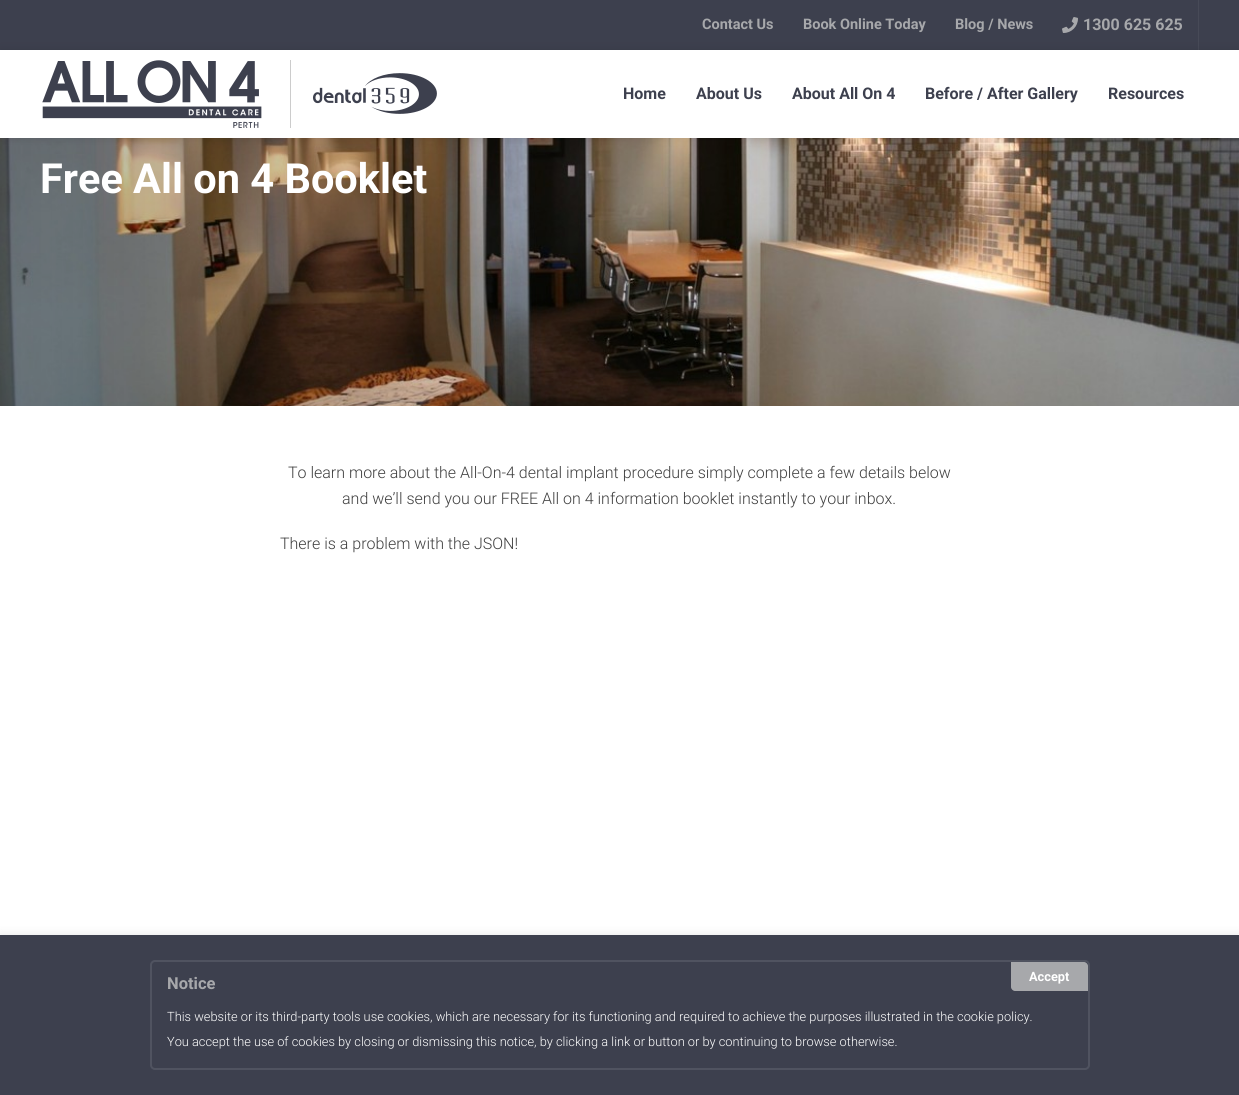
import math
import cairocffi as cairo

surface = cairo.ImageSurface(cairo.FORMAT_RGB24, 1239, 1095)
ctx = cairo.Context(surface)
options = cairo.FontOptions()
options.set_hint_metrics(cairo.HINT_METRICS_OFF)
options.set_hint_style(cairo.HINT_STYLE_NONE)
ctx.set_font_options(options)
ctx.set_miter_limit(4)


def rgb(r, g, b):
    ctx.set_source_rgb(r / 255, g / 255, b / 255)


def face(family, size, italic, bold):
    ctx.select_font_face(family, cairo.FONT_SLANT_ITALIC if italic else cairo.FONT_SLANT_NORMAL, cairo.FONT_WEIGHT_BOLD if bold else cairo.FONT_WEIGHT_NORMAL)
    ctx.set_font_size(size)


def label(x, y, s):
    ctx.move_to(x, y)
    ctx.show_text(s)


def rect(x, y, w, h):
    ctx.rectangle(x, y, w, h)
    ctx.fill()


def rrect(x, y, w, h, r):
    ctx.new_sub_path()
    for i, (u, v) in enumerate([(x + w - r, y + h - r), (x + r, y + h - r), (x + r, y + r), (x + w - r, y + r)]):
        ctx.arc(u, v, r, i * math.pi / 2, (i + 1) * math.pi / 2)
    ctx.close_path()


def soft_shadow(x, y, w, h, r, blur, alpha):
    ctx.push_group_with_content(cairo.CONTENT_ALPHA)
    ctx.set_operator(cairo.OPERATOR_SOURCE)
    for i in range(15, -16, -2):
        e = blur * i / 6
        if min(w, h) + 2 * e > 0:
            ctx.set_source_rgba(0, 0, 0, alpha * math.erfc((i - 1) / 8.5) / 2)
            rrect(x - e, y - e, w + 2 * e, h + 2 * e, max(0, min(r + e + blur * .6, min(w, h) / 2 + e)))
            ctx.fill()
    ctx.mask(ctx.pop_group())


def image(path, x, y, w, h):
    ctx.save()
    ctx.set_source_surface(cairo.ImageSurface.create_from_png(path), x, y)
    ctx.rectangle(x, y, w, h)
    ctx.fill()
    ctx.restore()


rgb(255, 255, 255)
ctx.paint()
rgb(61, 64, 78)
rect(0, 0, 1239, 50)
face('Roboto', 14.5, 0, 1)
rgb(167, 168, 171)
label(702, 29, 'Contact Us')
label(803, 29, 'Book Online Today')
label(955, 29, 'Blog / News')
rgb(71, 74, 87)
rect(1198, 0, 1, 50)
image('image0.png', 1062, 17, 16, 16)
face('Roboto', 16, 0, 1)
rgb(167, 168, 171)
label(1083, 30, '1300 625 625')
image('image3.png', 0, 138, 1239, 268)
rgb(0, 0, 0)
soft_shadow(0, 50, 1239, 88, 0, 5, 0.1)
rgb(255, 255, 255)
rect(0, 50, 1239, 88)
image('image1.png', 42, 60, 220, 68)
rgb(204, 204, 204)
rect(290, 60, 1, 68)
image('image2.png', 313, 73, 124, 41)
rgb(61, 64, 78)
label(623, 99, 'Home')
label(696, 99, 'About Us')
label(792, 99, 'About All On 4')
label(925, 99, 'Before / After Gallery')
label(1108, 99, 'Resources')
face('Roboto', 41.5, 0, 1)
rgb(255, 255, 255)
label(40, 193, 'Free All on 4 Booklet')
face('Roboto Light', 16, 0, 0)
rgb(63, 63, 63)
label(288, 478, 'To learn more about the All-On-4 dental implant procedure simply complete a few details below')
label(342, 504, 'and we’ll send you our FREE All on 4 information booklet instantly to your inbox.')
label(280, 549, 'There is a problem with the JSON!')
rgb(0, 0, 0)
soft_shadow(0, 935, 1239, 160, 0, 5, 0.1)
rgb(61, 64, 78)
rect(0, 935, 1239, 160)
rrect(151, 961, 938, 108, 4)
rgb(80, 83, 96)
ctx.stroke()
face('Roboto', 16.5, 0, 1)
rgb(167, 168, 171)
label(167, 989, 'Notice')
ctx.new_path()
ctx.move_to(1011, 962)
ctx.line_to(1084, 962)
ctx.curve_to(1086, 962, 1088, 964, 1088, 966)
ctx.line_to(1088, 991)
ctx.line_to(1015, 991)
ctx.curve_to(1013, 991, 1011, 989, 1011, 987)
ctx.close_path()
ctx.fill()
face('Roboto', 12.8, 0, 1)
rgb(255, 255, 255)
label(1029, 981, 'Accept')
face('Roboto Light', 12.8, 0, 0)
label(167, 1021, 'This website or its third-party tools use cookies, which are necessary for its functioning and required to achieve the purposes illustrated in the cookie policy.')
label(167, 1046, 'You accept the use of cookies by closing or dismissing this notice, by clicking a link or button or by continuing to browse otherwise.')
surface.write_to_png('render.png')
